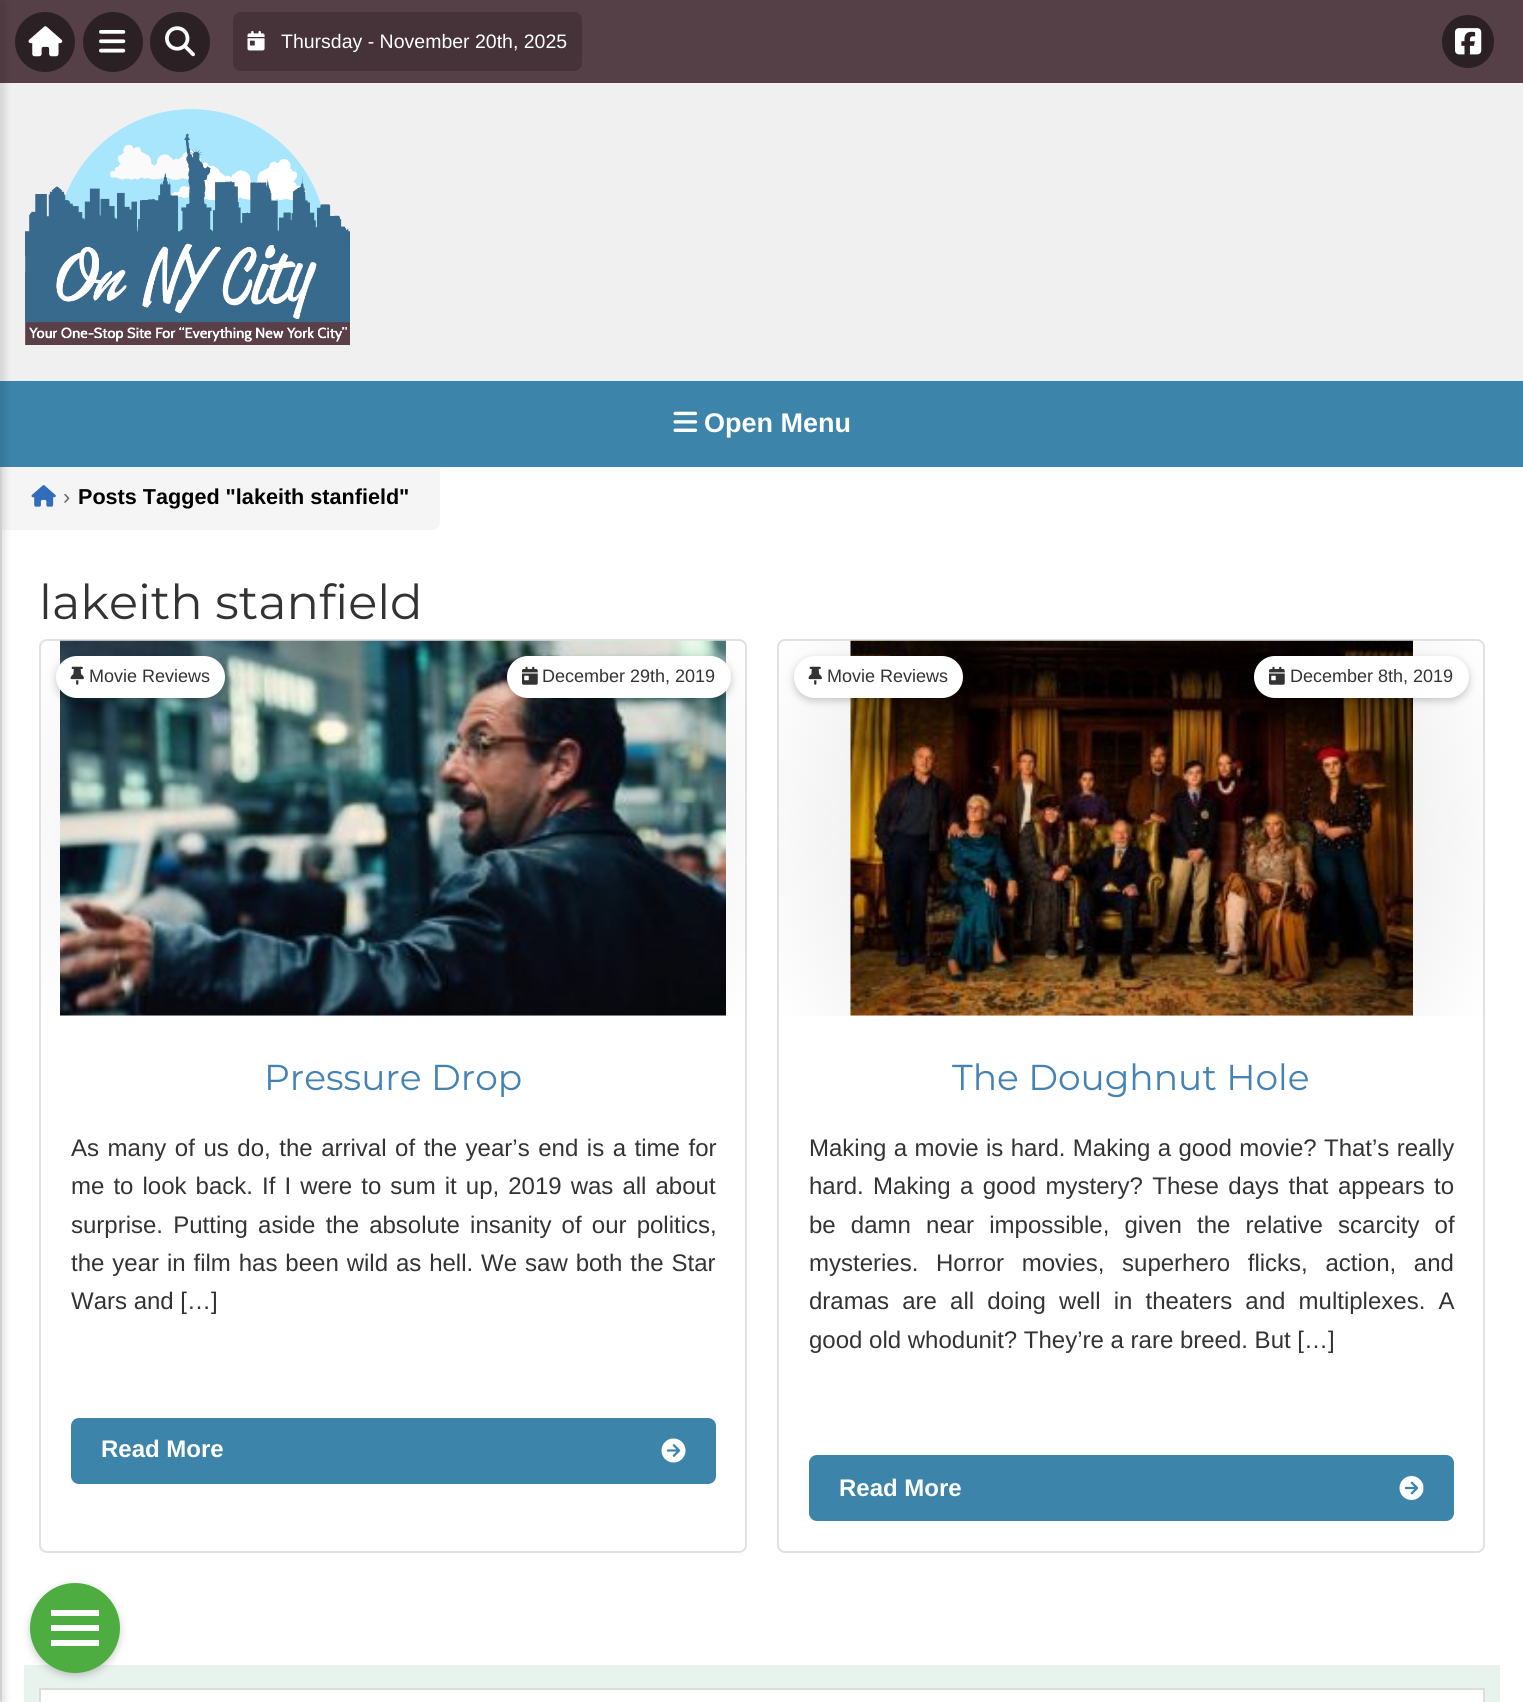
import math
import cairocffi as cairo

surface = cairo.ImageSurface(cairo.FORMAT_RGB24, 1523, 1702)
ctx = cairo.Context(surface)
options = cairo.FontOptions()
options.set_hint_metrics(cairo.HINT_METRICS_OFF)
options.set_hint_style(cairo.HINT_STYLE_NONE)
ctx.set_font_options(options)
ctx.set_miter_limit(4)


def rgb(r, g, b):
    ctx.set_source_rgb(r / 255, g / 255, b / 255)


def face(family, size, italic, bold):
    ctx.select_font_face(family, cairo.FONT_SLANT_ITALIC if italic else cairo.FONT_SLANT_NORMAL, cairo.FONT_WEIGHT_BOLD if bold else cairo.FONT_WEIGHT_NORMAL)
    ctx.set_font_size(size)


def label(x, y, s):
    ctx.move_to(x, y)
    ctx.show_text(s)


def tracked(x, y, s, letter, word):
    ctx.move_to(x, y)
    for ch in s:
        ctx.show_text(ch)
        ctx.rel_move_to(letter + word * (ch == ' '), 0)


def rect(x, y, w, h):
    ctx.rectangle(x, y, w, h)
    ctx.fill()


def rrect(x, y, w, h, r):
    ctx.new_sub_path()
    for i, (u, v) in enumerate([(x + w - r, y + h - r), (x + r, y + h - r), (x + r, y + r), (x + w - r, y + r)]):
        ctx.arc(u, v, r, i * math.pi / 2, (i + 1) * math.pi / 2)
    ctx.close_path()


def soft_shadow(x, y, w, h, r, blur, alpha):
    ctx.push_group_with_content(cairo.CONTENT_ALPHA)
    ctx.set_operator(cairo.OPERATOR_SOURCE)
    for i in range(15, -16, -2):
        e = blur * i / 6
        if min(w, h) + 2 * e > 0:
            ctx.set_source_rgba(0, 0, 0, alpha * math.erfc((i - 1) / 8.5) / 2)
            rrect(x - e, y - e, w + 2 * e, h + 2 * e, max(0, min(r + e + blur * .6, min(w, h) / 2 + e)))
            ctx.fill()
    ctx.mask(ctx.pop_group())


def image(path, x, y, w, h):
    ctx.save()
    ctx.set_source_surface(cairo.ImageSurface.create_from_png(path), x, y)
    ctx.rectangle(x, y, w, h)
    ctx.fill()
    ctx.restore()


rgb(240, 240, 240)
ctx.paint()
rgb(86, 64, 71)
rect(0, 0, 1523, 83)
rgb(43, 32, 36)
ctx.arc(45, 42, 30, 0, 2 * math.pi)
ctx.fill()
rgb(60, 132, 169)
rect(0, 381, 1523, 86)
rgb(255, 255, 255)
rect(2, 467, 1521, 1235)
rgb(230, 230, 230)
rect(0, 467, 2, 1235)
rgb(245, 245, 245)
ctx.new_path()
ctx.move_to(2, 467)
ctx.line_to(440, 467)
ctx.line_to(440, 522)
ctx.curve_to(440, 526.5, 436.5, 530, 432, 530)
ctx.line_to(2, 530)
ctx.close_path()
ctx.fill()
rgb(0, 0, 0)
soft_shadow(-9, 0, 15, 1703, 0, 3, 0.1)
image('image0.png', 28, 26, 35, 31)
rgb(43, 32, 36)
ctx.arc(113, 42, 30, 0, 2 * math.pi)
ctx.fill()
image('image1.png', 99, 30, 27, 23)
ctx.arc(180, 42, 30, 0, 2 * math.pi)
ctx.fill()
image('image2.png', 165, 26, 30, 31)
rgb(69, 51, 57)
rrect(233, 12, 349, 59, 8)
ctx.fill()
image('image3.png', 247, 30, 18, 21)
face('Liberation Sans', 19.5, 0, 0)
rgb(255, 255, 255)
label(281, 48, 'Thursday - November 20th, 2025')
rgb(43, 32, 36)
rrect(1442, 15, 52, 53, 26)
ctx.fill()
image('image4.png', 1455, 28, 27, 27)
image('image5.png', 25, 109, 325, 236)
image('image6.png', 673, 411, 25, 21)
face('Liberation Sans', 27, 0, 1)
rgb(255, 255, 255)
label(704, 432, 'Open Menu')
image('image7.png', 31, 485, 25, 22)
face('Liberation Sans', 21.6, 0, 0)
rgb(102, 102, 102)
label(63, 504, '›')
face('Liberation Sans', 21.6, 0, 1)
rgb(0, 0, 0)
label(78, 504, 'Posts Tagged "lakeith stanfield"')
face('Montserrat', 48, 0, 0)
rgb(51, 51, 51)
label(39, 619, 'lakeith stanfield')
rrect(40, 640, 706, 912, 7)
rgb(225, 225, 225)
ctx.stroke()
gradient = cairo.RadialGradient(393, 828, 0, 393, 828, 399)
gradient.add_color_stop_rgba(0, 0.827, 0.827, 0.827, 1)
gradient.add_color_stop_rgba(1, 0.827, 0.827, 0.827, 0)
ctx.set_source(gradient)
rect(41, 641, 704, 375)
image('image8.png', 60, 640, 666, 376)
rgb(0, 0, 0)
soft_shadow(56, 659, 169, 42, 21, 4, 0.2)
rgb(255, 255, 255)
rrect(56, 656, 169, 42, 21)
ctx.fill()
image('image9.png', 70, 666, 14, 19)
face('Liberation Sans', 18, 0, 0)
rgb(51, 51, 51)
label(89, 682, 'Movie Reviews')
rgb(0, 0, 0)
soft_shadow(507, 659, 224, 42, 21, 4, 0.2)
rgb(255, 255, 255)
rrect(507, 656, 224, 42, 21)
ctx.fill()
image('image10.png', 522, 666, 16, 19)
rgb(51, 51, 51)
label(542, 682, 'December 29th, 2019')
face('Montserrat', 36, 0, 0)
rgb(69, 130, 180)
label(264, 1090, 'Pressure Drop')
face('Liberation Sans', 24, 0, 0)
rgb(51, 51, 51)
tracked(71, 1156, 'As many of us do, the arrival of the year’s end is a time for', 0, 1.9)
tracked(71, 1194, 'me to look back. If I were to sum it up, 2019 was all about', 0, 2.4)
tracked(71, 1233, 'surprise. Putting aside the absolute insanity of our politics,', 0, 3.5)
tracked(71, 1271, 'the year in film has been wild as hell. We saw both the Star', 0, 1.25)
label(71, 1309, 'Wars and […]')
rgb(60, 132, 169)
rrect(71, 1418, 645, 66, 8)
ctx.fill()
face('Liberation Sans', 24, 0, 1)
rgb(255, 255, 255)
label(101, 1457, 'Read More')
image('image11.png', 661, 1438, 25, 25)
rrect(778, 640, 706, 912, 7)
rgb(225, 225, 225)
ctx.stroke()
gradient = cairo.RadialGradient(1131, 828, 0, 1131, 828, 399)
gradient.add_color_stop_rgba(0, 0.827, 0.827, 0.827, 1)
gradient.add_color_stop_rgba(1, 0.827, 0.827, 0.827, 0)
ctx.set_source(gradient)
rect(779, 641, 704, 375)
image('image12.png', 850, 640, 563, 376)
rgb(0, 0, 0)
soft_shadow(794, 659, 169, 42, 21, 4, 0.2)
rgb(255, 255, 255)
rrect(794, 656, 169, 42, 21)
ctx.fill()
image('image9.png', 808, 666, 14, 19)
face('Liberation Sans', 18, 0, 0)
rgb(51, 51, 51)
label(827, 682, 'Movie Reviews')
rgb(0, 0, 0)
soft_shadow(1254, 659, 215, 42, 21, 4, 0.2)
rgb(255, 255, 255)
rrect(1254, 656, 215, 42, 21)
ctx.fill()
image('image10.png', 1269, 666, 16, 19)
rgb(51, 51, 51)
label(1290, 682, 'December 8th, 2019')
face('Montserrat', 36, 0, 0)
rgb(69, 130, 180)
label(952, 1090, 'The Doughnut Hole')
face('Liberation Sans', 24, 0, 0)
rgb(51, 51, 51)
tracked(809, 1156, 'Making a movie is hard. Making a good movie? That’s really', 0, 0.75)
tracked(809, 1194, 'hard. Making a good mystery? These days that appears to', 0, 2.75)
tracked(809, 1233, 'be damn near impossible, given the relative scarcity of', 0, 8.5)
tracked(809, 1271, 'mysteries. Horror movies, superhero flicks, action, and', 0, 11)
tracked(809, 1309, 'dramas are all doing well in theaters and multiplexes. A', 0, 6.5)
label(809, 1348, 'good old whodunit? They’re a rare breed. But […]')
rgb(60, 132, 169)
rrect(809, 1455, 645, 66, 8)
ctx.fill()
face('Liberation Sans', 24, 0, 1)
rgb(255, 255, 255)
label(839, 1496, 'Read More')
image('image13.png', 1399, 1476, 25, 24)
rgb(232, 243, 238)
rect(24, 1665, 1476, 37)
rgb(255, 255, 255)
ctx.rectangle(40, 1689, 1444, 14)
ctx.fill_preserve()
rgb(221, 221, 221)
ctx.stroke()
rgb(0, 0, 0)
soft_shadow(30, 1586, 90, 90, 45, 4, 0.2)
rgb(77, 173, 65)
ctx.arc(75, 1628, 45, 0, 2 * math.pi)
ctx.fill()
rgb(255, 255, 255)
rect(51, 1610, 48, 6)
rect(51, 1625, 48, 6)
rect(51, 1640, 48, 6)
surface.write_to_png('render.png')
